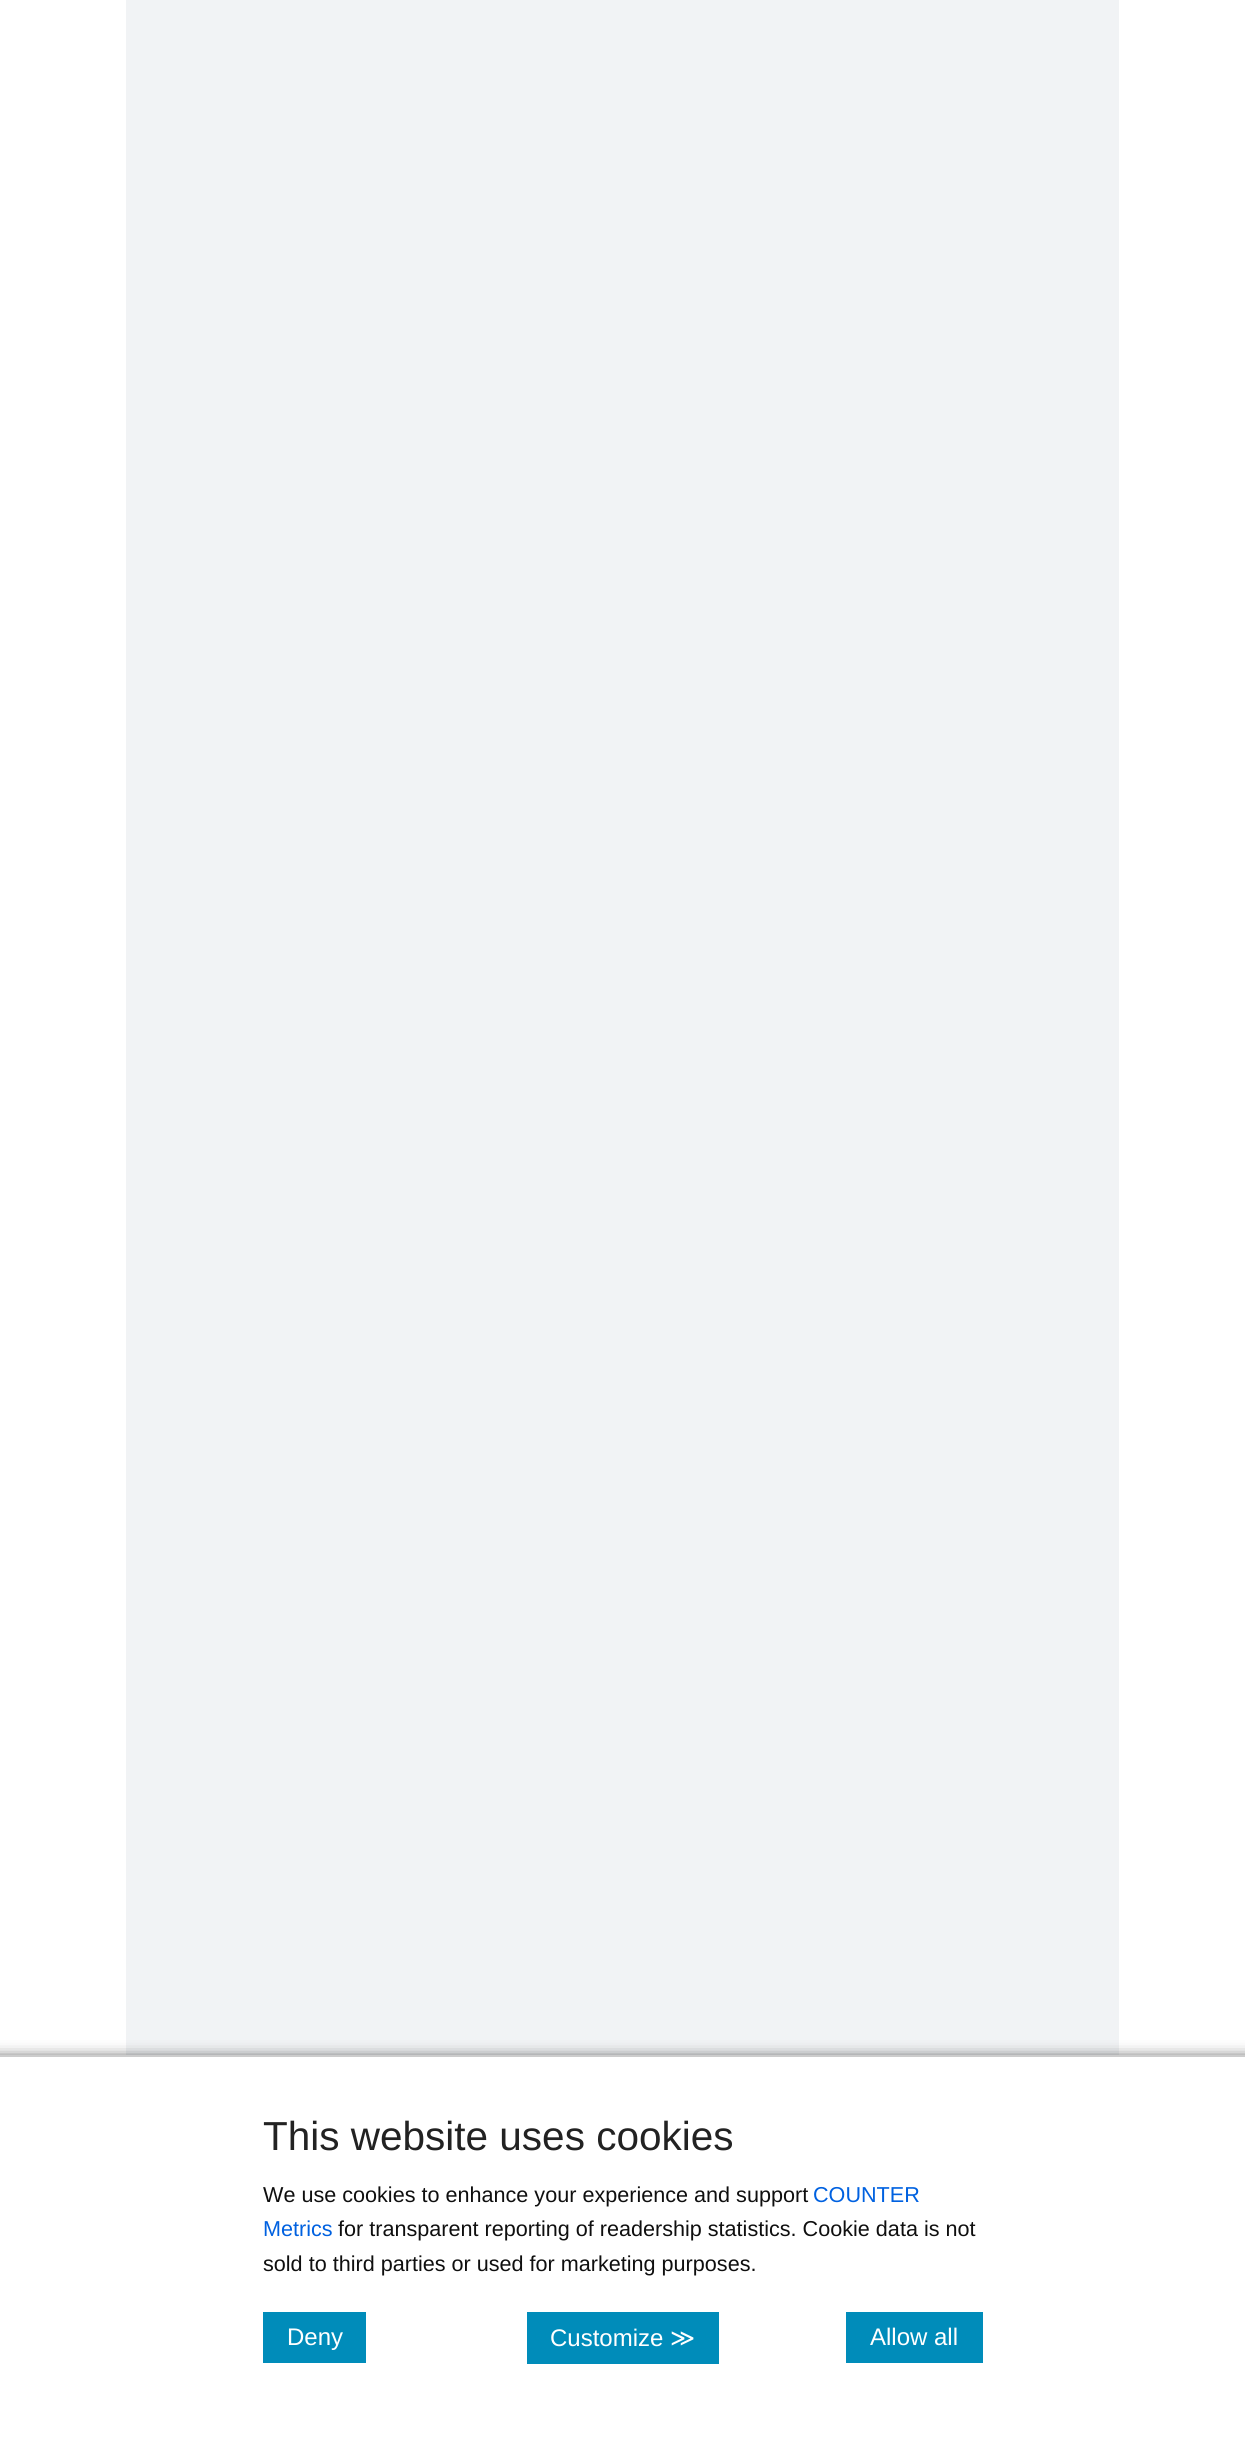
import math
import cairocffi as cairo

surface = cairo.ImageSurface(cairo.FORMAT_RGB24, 1245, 2442)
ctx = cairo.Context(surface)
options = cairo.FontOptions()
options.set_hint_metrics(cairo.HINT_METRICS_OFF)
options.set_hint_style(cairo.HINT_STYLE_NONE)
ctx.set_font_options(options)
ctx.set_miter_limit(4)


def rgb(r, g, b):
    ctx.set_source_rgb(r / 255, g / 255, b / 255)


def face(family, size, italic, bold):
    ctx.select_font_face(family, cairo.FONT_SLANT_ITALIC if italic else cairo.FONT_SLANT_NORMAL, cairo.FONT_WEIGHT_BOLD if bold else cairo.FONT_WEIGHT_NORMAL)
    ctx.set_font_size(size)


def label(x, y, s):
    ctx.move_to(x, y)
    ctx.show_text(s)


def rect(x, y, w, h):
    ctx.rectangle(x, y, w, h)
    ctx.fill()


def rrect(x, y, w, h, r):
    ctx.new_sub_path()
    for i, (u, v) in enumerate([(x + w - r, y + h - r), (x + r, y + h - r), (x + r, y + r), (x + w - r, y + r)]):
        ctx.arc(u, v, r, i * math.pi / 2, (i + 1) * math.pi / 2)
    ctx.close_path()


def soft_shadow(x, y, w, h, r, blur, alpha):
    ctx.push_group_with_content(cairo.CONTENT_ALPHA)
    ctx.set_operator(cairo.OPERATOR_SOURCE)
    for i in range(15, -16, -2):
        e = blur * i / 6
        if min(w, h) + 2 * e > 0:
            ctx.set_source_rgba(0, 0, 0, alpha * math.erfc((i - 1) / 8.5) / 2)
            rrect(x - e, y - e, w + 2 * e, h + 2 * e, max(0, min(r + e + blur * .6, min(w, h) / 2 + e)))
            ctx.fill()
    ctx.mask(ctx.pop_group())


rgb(255, 255, 255)
ctx.paint()
rgb(241, 243, 245)
rect(126, 0, 993, 2055)
rgb(0, 0, 0)
soft_shadow(-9, 2060, 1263, 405, 0, 8, 1)
rgb(255, 255, 255)
rect(0, 2057, 1245, 385)
rgb(204, 204, 204)
rect(0, 2055, 1245, 2)
face('Liberation Sans', 40.5, 0, 0)
rgb(34, 34, 34)
label(263, 2150, 'This website uses cookies')
face('Liberation Sans', 21.6, 0, 0)
rgb(15, 15, 15)
label(263, 2202, 'We use cookies to enhance your experience and support')
rgb(0, 97, 224)
label(813, 2202, 'COUNTER')
label(263, 2236, 'Metrics')
rgb(15, 15, 15)
label(338, 2236, 'for transparent reporting of readership statistics. Cookie data is not')
label(263, 2271, 'sold to third parties or used for marketing purposes.')
rgb(0, 140, 186)
rect(263, 2312, 103, 51)
face('Liberation Sans', 24, 0, 0)
rgb(255, 255, 255)
label(287, 2345, 'Deny')
rgb(0, 140, 186)
rect(527, 2312, 192, 52)
rgb(255, 255, 255)
label(550, 2346, 'Customize')
face('DejaVu Sans', 24, 0, 0)
label(670, 2346, '≫')
rgb(0, 140, 186)
rect(846, 2312, 137, 51)
face('Liberation Sans', 24, 0, 0)
rgb(255, 255, 255)
label(870, 2345, 'Allow all')
surface.write_to_png('render.png')
